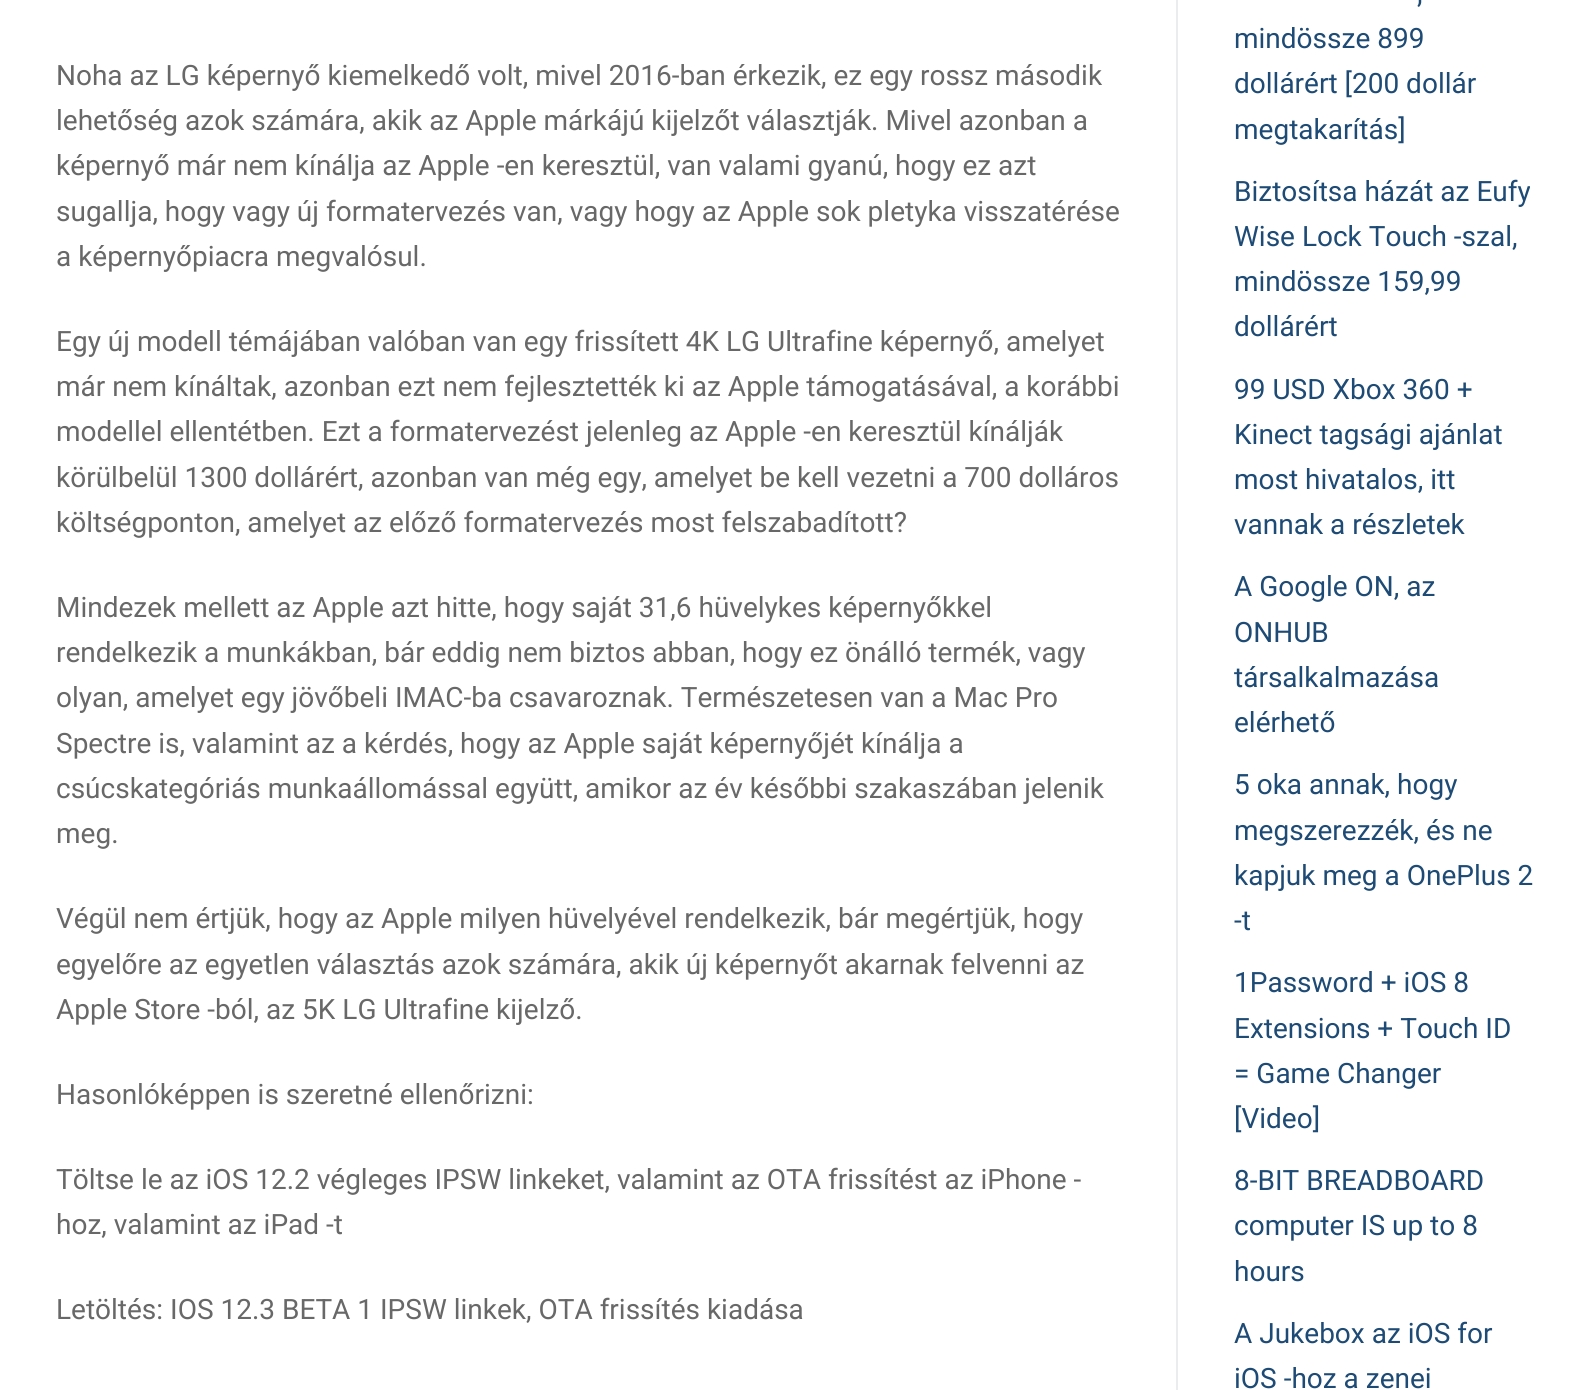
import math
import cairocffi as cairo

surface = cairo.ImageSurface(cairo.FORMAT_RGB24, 1589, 1390)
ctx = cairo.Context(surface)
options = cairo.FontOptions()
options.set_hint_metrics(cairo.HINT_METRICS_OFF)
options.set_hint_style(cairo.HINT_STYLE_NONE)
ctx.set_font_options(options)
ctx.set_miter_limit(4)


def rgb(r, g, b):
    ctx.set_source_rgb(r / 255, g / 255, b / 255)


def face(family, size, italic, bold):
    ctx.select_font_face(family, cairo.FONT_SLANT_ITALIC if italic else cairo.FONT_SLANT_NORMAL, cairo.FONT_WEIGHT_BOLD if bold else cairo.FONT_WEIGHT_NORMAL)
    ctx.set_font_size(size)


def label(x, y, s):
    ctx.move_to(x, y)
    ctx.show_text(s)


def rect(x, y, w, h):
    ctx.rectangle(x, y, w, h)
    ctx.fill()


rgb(255, 255, 255)
ctx.paint()
rgb(234, 236, 238)
rect(1176, 0, 2, 1390)
face('Roboto', 28, 0, 0)
rgb(104, 104, 104)
label(56, 85, 'Noha az LG képernyő kiemelkedő volt, mivel 2016-ban érkezik, ez egy rossz második')
label(56, 130, 'lehetőség azok számára, akik az Apple márkájú kijelzőt választják. Mivel azonban a')
label(56, 175, 'képernyő már nem kínálja az Apple -en keresztül, van valami gyanú, hogy ez azt')
label(56, 221, 'sugallja, hogy vagy új formatervezés van, vagy hogy az Apple sok pletyka visszatérése')
label(56, 266, 'a képernyőpiacra megvalósul.')
label(56, 351, 'Egy új modell témájában valóban van egy frissített 4K LG Ultrafine képernyő, amelyet')
label(56, 396, 'már nem kínáltak, azonban ezt nem fejlesztették ki az Apple támogatásával, a korábbi')
label(56, 441, 'modellel ellentétben. Ezt a formatervezést jelenleg az Apple -en keresztül kínálják')
label(56, 487, 'körülbelül 1300 dollárért, azonban van még egy, amelyet be kell vezetni a 700 dolláros')
label(56, 532, 'költségponton, amelyet az előző formatervezés most felszabadított?')
label(56, 617, 'Mindezek mellett az Apple azt hitte, hogy saját 31,6 hüvelykes képernyőkkel')
label(56, 662, 'rendelkezik a munkákban, bár eddig nem biztos abban, hogy ez önálló termék, vagy')
label(56, 707, 'olyan, amelyet egy jövőbeli IMAC-ba csavaroznak. Természetesen van a Mac Pro')
label(56, 753, 'Spectre is, valamint az a kérdés, hogy az Apple saját képernyőjét kínálja a')
label(56, 798, 'csúcskategóriás munkaállomással együtt, amikor az év későbbi szakaszában jelenik')
label(56, 843, 'meg.')
label(56, 928, 'Végül nem értjük, hogy az Apple milyen hüvelyével rendelkezik, bár megértjük, hogy')
label(56, 974, 'egyelőre az egyetlen választás azok számára, akik új képernyőt akarnak felvenni az')
label(56, 1019, 'Apple Store -ból, az 5K LG Ultrafine kijelző.')
label(56, 1104, 'Hasonlóképpen is szeretné ellenőrizni:')
label(56, 1189, 'Töltse le az iOS 12.2 végleges IPSW linkeket, valamint az OTA frissítést az iPhone -')
label(56, 1234, 'hoz, valamint az iPad -t')
label(56, 1319, 'Letöltés: IOS 12.3 BETA 1 IPSW linkek, OTA frissítés kiadása')
rgb(30, 75, 117)
label(1417, 3, ',')
label(1234, 48, 'mindössze 899')
label(1234, 93, 'dollárért [200 dollár')
label(1234, 139, 'megtakarítás]')
label(1234, 201, 'Biztosítsa házát az Eufy')
label(1234, 246, 'Wise Lock Touch -szal,')
label(1234, 291, 'mindössze 159,99')
label(1234, 336, 'dollárért')
label(1234, 399, '99 USD Xbox 360 +')
label(1234, 444, 'Kinect tagsági ajánlat')
label(1234, 489, 'most hivatalos, itt')
label(1234, 534, 'vannak a részletek')
label(1234, 596, 'A Google ON, az')
label(1234, 642, 'ONHUB')
label(1234, 687, 'társalkalmazása')
label(1234, 732, 'elérhető')
label(1234, 794, '5 oka annak, hogy')
label(1234, 840, 'megszerezzék, és ne')
label(1234, 885, 'kapjuk meg a OnePlus 2')
label(1234, 930, '-t')
label(1234, 992, '1Password + iOS 8')
label(1234, 1038, 'Extensions + Touch ID')
label(1234, 1083, '= Game Changer')
label(1234, 1128, '[Video]')
label(1234, 1190, '8-BIT BREADBOARD')
label(1234, 1235, 'computer IS up to 8')
label(1234, 1281, 'hours')
label(1234, 1343, 'A Jukebox az iOS for')
label(1234, 1388, 'iOS -hoz a zenei')
surface.write_to_png('render.png')
